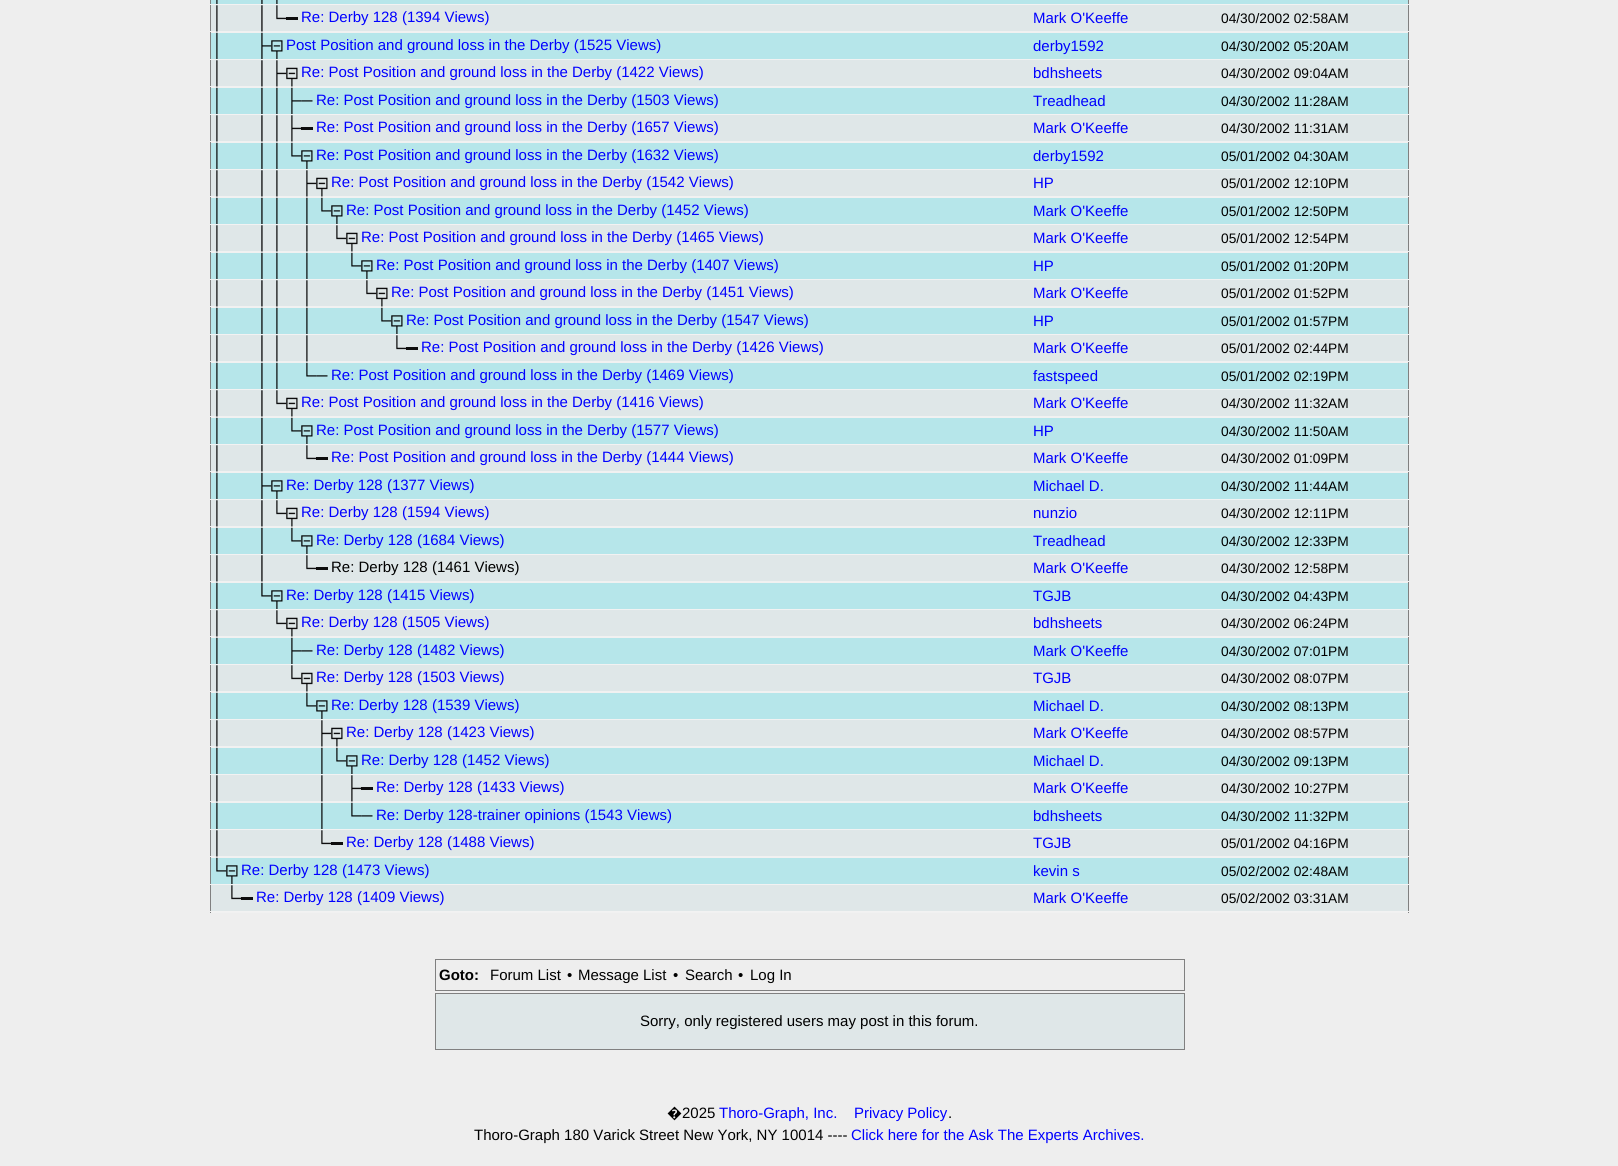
import math
import cairocffi as cairo

surface = cairo.ImageSurface(cairo.FORMAT_RGB24, 1618, 1166)
ctx = cairo.Context(surface)
options = cairo.FontOptions()
options.set_hint_metrics(cairo.HINT_METRICS_OFF)
options.set_hint_style(cairo.HINT_STYLE_NONE)
ctx.set_font_options(options)
ctx.set_miter_limit(4)


def rgb(r, g, b):
    ctx.set_source_rgb(r / 255, g / 255, b / 255)


def face(family, size, italic, bold):
    ctx.select_font_face(family, cairo.FONT_SLANT_ITALIC if italic else cairo.FONT_SLANT_NORMAL, cairo.FONT_WEIGHT_BOLD if bold else cairo.FONT_WEIGHT_NORMAL)
    ctx.set_font_size(size)


def label(x, y, s):
    ctx.move_to(x, y)
    ctx.show_text(s)


def rect(x, y, w, h):
    ctx.rectangle(x, y, w, h)
    ctx.fill()


def image(path, x, y, w, h):
    ctx.save()
    ctx.set_source_surface(cairo.ImageSurface.create_from_png(path), x, y)
    ctx.rectangle(x, y, w, h)
    ctx.fill()
    ctx.restore()


rgb(238, 238, 238)
ctx.paint()
rgb(182, 230, 234)
rect(210, 0, 1199, 4)
rgb(128, 128, 128)
rect(1408, 0, 1, 913)
rect(210, 0, 1, 913)
image('image0.png', 216, 0, 2, 4)
image('image1.png', 261, 0, 2, 4)
image('image0.png', 276, 0, 2, 4)
rgb(242, 242, 242)
rect(210, 4, 1199, 1)
rgb(241, 241, 241)
rect(211, 31, 1197, 2)
rgb(223, 231, 232)
rect(211, 5, 1197, 26)
rgb(242, 242, 242)
rect(210, 31, 1, 1)
image('image2.png', 216, 5, 2, 27)
image('image3.png', 261, 5, 2, 27)
image('image4.png', 276, 5, 11, 15)
ctx.set_source_rgba(0, 0, 0, 0.94)
rect(286, 17, 12, 3)
face('Liberation Sans', 15, 0, 0)
rgb(0, 0, 255)
label(301, 22, 'Re: Derby 128 (1394 Views)')
label(1033, 23, 'Mark O\'Keeffe')
rgb(242, 242, 242)
rect(1408, 31, 1, 1)
face('Liberation Sans', 13.75, 0, 0)
rgb(0, 0, 0)
label(1221, 23, '04/30/2002 02:58AM')
rgb(182, 230, 234)
rect(211, 33, 1197, 26)
image('image5.png', 216, 32, 2, 27)
image('image6.png', 261, 32, 11, 27)
image('image7.png', 271, 40, 12, 19)
face('Liberation Sans', 15, 0, 0)
rgb(0, 0, 255)
label(286, 50, 'Post Position and ground loss in the Derby (1525 Views)')
label(1033, 51, 'derby1592')
rgb(242, 242, 242)
rect(210, 59, 1199, 1)
face('Liberation Sans', 13.75, 0, 0)
rgb(0, 0, 0)
label(1221, 51, '04/30/2002 05:20AM')
rgb(241, 241, 241)
rect(211, 86, 1197, 2)
rgb(223, 231, 232)
rect(211, 60, 1197, 26)
rgb(242, 242, 242)
rect(210, 86, 1, 1)
image('image2.png', 216, 60, 2, 27)
image('image3.png', 261, 60, 2, 27)
image('image8.png', 276, 60, 11, 27)
image('image9.png', 286, 67, 12, 20)
face('Liberation Sans', 15, 0, 0)
rgb(0, 0, 255)
label(301, 77, 'Re: Post Position and ground loss in the Derby (1422 Views)')
label(1033, 78, 'bdhsheets')
rgb(242, 242, 242)
rect(1408, 86, 1, 1)
face('Liberation Sans', 13.75, 0, 0)
rgb(0, 0, 0)
label(1221, 78, '04/30/2002 09:04AM')
rgb(182, 230, 234)
rect(211, 88, 1197, 26)
image('image5.png', 216, 87, 2, 27)
image('image10.png', 261, 87, 2, 27)
image('image5.png', 276, 87, 2, 27)
image('image11.png', 291, 87, 11, 27)
image('image12.png', 301, 100, 12, 2)
face('Liberation Sans', 15, 0, 0)
rgb(0, 0, 255)
label(316, 105, 'Re: Post Position and ground loss in the Derby (1503 Views)')
label(1033, 106, 'Treadhead')
rgb(242, 242, 242)
rect(210, 114, 1199, 1)
face('Liberation Sans', 13.75, 0, 0)
rgb(0, 0, 0)
label(1221, 106, '04/30/2002 11:28AM')
rgb(241, 241, 241)
rect(211, 141, 1197, 2)
rgb(223, 231, 232)
rect(211, 115, 1197, 26)
rgb(242, 242, 242)
rect(210, 141, 1, 1)
image('image2.png', 216, 115, 2, 27)
image('image3.png', 261, 115, 2, 27)
image('image2.png', 276, 115, 2, 27)
image('image8.png', 291, 115, 11, 27)
ctx.set_source_rgba(0, 0, 0, 0.94)
rect(301, 127, 12, 3)
face('Liberation Sans', 15, 0, 0)
rgb(0, 0, 255)
label(316, 132, 'Re: Post Position and ground loss in the Derby (1657 Views)')
label(1033, 133, 'Mark O\'Keeffe')
rgb(242, 242, 242)
rect(1408, 141, 1, 1)
face('Liberation Sans', 13.75, 0, 0)
rgb(0, 0, 0)
label(1221, 133, '04/30/2002 11:31AM')
rgb(182, 230, 234)
rect(211, 143, 1197, 26)
image('image5.png', 216, 142, 2, 27)
image('image10.png', 261, 142, 2, 27)
image('image5.png', 276, 142, 2, 27)
image('image13.png', 291, 142, 11, 15)
image('image7.png', 301, 150, 12, 19)
face('Liberation Sans', 15, 0, 0)
rgb(0, 0, 255)
label(316, 160, 'Re: Post Position and ground loss in the Derby (1632 Views)')
label(1033, 161, 'derby1592')
rgb(242, 242, 242)
rect(210, 169, 1199, 1)
face('Liberation Sans', 13.75, 0, 0)
rgb(0, 0, 0)
label(1221, 161, '05/01/2002 04:30AM')
rgb(241, 241, 241)
rect(211, 196, 1197, 2)
rgb(223, 231, 232)
rect(211, 170, 1197, 26)
rgb(242, 242, 242)
rect(210, 196, 1, 1)
image('image2.png', 216, 170, 2, 27)
image('image3.png', 261, 170, 2, 27)
image('image2.png', 276, 170, 2, 27)
image('image8.png', 306, 170, 11, 27)
image('image9.png', 316, 177, 12, 20)
face('Liberation Sans', 15, 0, 0)
rgb(0, 0, 255)
label(331, 187, 'Re: Post Position and ground loss in the Derby (1542 Views)')
label(1033, 188, 'HP')
rgb(242, 242, 242)
rect(1408, 196, 1, 1)
face('Liberation Sans', 13.75, 0, 0)
rgb(0, 0, 0)
label(1221, 188, '05/01/2002 12:10PM')
rgb(182, 230, 234)
rect(211, 198, 1197, 26)
image('image5.png', 216, 197, 2, 27)
image('image10.png', 261, 197, 2, 27)
image('image5.png', 276, 197, 2, 27)
image('image5.png', 306, 197, 2, 27)
image('image13.png', 321, 197, 11, 15)
image('image7.png', 331, 205, 12, 19)
face('Liberation Sans', 15, 0, 0)
rgb(0, 0, 255)
label(346, 215, 'Re: Post Position and ground loss in the Derby (1452 Views)')
label(1033, 216, 'Mark O\'Keeffe')
rgb(242, 242, 242)
rect(210, 224, 1199, 1)
face('Liberation Sans', 13.75, 0, 0)
rgb(0, 0, 0)
label(1221, 216, '05/01/2002 12:50PM')
rgb(241, 241, 241)
rect(211, 251, 1197, 2)
rgb(223, 231, 232)
rect(211, 225, 1197, 26)
rgb(242, 242, 242)
rect(210, 251, 1, 1)
image('image2.png', 216, 225, 2, 27)
image('image3.png', 261, 225, 2, 27)
image('image2.png', 276, 225, 2, 27)
image('image2.png', 306, 225, 2, 27)
image('image4.png', 336, 225, 11, 15)
image('image9.png', 346, 232, 12, 20)
face('Liberation Sans', 15, 0, 0)
rgb(0, 0, 255)
label(361, 242, 'Re: Post Position and ground loss in the Derby (1465 Views)')
label(1033, 243, 'Mark O\'Keeffe')
rgb(242, 242, 242)
rect(1408, 251, 1, 1)
face('Liberation Sans', 13.75, 0, 0)
rgb(0, 0, 0)
label(1221, 243, '05/01/2002 12:54PM')
rgb(182, 230, 234)
rect(211, 253, 1197, 26)
image('image5.png', 216, 252, 2, 27)
image('image10.png', 261, 252, 2, 27)
image('image5.png', 276, 252, 2, 27)
image('image5.png', 306, 252, 2, 27)
image('image13.png', 351, 252, 11, 15)
image('image7.png', 361, 260, 12, 19)
face('Liberation Sans', 15, 0, 0)
rgb(0, 0, 255)
label(376, 270, 'Re: Post Position and ground loss in the Derby (1407 Views)')
label(1033, 271, 'HP')
rgb(242, 242, 242)
rect(210, 279, 1199, 1)
face('Liberation Sans', 13.75, 0, 0)
rgb(0, 0, 0)
label(1221, 271, '05/01/2002 01:20PM')
rgb(241, 241, 241)
rect(211, 306, 1197, 2)
rgb(223, 231, 232)
rect(211, 280, 1197, 26)
rgb(242, 242, 242)
rect(210, 306, 1, 1)
image('image2.png', 216, 280, 2, 27)
image('image3.png', 261, 280, 2, 27)
image('image2.png', 276, 280, 2, 27)
image('image2.png', 306, 280, 2, 27)
image('image4.png', 366, 280, 11, 15)
image('image9.png', 376, 287, 12, 20)
face('Liberation Sans', 15, 0, 0)
rgb(0, 0, 255)
label(391, 297, 'Re: Post Position and ground loss in the Derby (1451 Views)')
label(1033, 298, 'Mark O\'Keeffe')
rgb(242, 242, 242)
rect(1408, 306, 1, 1)
face('Liberation Sans', 13.75, 0, 0)
rgb(0, 0, 0)
label(1221, 298, '05/01/2002 01:52PM')
rgb(182, 230, 234)
rect(211, 308, 1197, 26)
image('image5.png', 216, 307, 2, 27)
image('image10.png', 261, 307, 2, 27)
image('image5.png', 276, 307, 2, 27)
image('image5.png', 306, 307, 2, 27)
image('image13.png', 381, 307, 11, 15)
image('image7.png', 391, 315, 12, 19)
face('Liberation Sans', 15, 0, 0)
rgb(0, 0, 255)
label(406, 325, 'Re: Post Position and ground loss in the Derby (1547 Views)')
label(1033, 326, 'HP')
rgb(242, 242, 242)
rect(210, 334, 1199, 1)
face('Liberation Sans', 13.75, 0, 0)
rgb(0, 0, 0)
label(1221, 326, '05/01/2002 01:57PM')
rgb(241, 241, 241)
rect(211, 361, 1197, 2)
rgb(223, 231, 232)
rect(211, 335, 1197, 26)
rgb(242, 242, 242)
rect(210, 361, 1, 1)
image('image2.png', 216, 335, 2, 27)
image('image3.png', 261, 335, 2, 27)
image('image2.png', 276, 335, 2, 27)
image('image2.png', 306, 335, 2, 27)
image('image4.png', 396, 335, 11, 15)
ctx.set_source_rgba(0, 0, 0, 0.94)
rect(406, 347, 12, 3)
face('Liberation Sans', 15, 0, 0)
rgb(0, 0, 255)
label(421, 352, 'Re: Post Position and ground loss in the Derby (1426 Views)')
label(1033, 353, 'Mark O\'Keeffe')
rgb(242, 242, 242)
rect(1408, 361, 1, 1)
face('Liberation Sans', 13.75, 0, 0)
rgb(0, 0, 0)
label(1221, 353, '05/01/2002 02:44PM')
rgb(182, 230, 234)
rect(211, 363, 1197, 26)
image('image5.png', 216, 362, 2, 27)
image('image10.png', 261, 362, 2, 27)
image('image5.png', 276, 362, 2, 27)
image('image13.png', 306, 362, 11, 15)
image('image12.png', 316, 375, 12, 2)
face('Liberation Sans', 15, 0, 0)
rgb(0, 0, 255)
label(331, 380, 'Re: Post Position and ground loss in the Derby (1469 Views)')
label(1033, 381, 'fastspeed')
rgb(242, 242, 242)
rect(210, 389, 1199, 1)
face('Liberation Sans', 13.75, 0, 0)
rgb(0, 0, 0)
label(1221, 381, '05/01/2002 02:19PM')
rgb(241, 241, 241)
rect(211, 416, 1197, 2)
rgb(223, 231, 232)
rect(211, 390, 1197, 26)
rgb(242, 242, 242)
rect(210, 416, 1, 1)
image('image2.png', 216, 390, 2, 27)
image('image3.png', 261, 390, 2, 27)
image('image4.png', 276, 390, 11, 15)
image('image9.png', 286, 397, 12, 20)
face('Liberation Sans', 15, 0, 0)
rgb(0, 0, 255)
label(301, 407, 'Re: Post Position and ground loss in the Derby (1416 Views)')
label(1033, 408, 'Mark O\'Keeffe')
rgb(242, 242, 242)
rect(1408, 416, 1, 1)
face('Liberation Sans', 13.75, 0, 0)
rgb(0, 0, 0)
label(1221, 408, '04/30/2002 11:32AM')
rgb(182, 230, 234)
rect(211, 418, 1197, 26)
image('image5.png', 216, 417, 2, 27)
image('image10.png', 261, 417, 2, 27)
image('image13.png', 291, 417, 11, 15)
image('image7.png', 301, 425, 12, 19)
face('Liberation Sans', 15, 0, 0)
rgb(0, 0, 255)
label(316, 435, 'Re: Post Position and ground loss in the Derby (1577 Views)')
label(1033, 436, 'HP')
rgb(242, 242, 242)
rect(210, 444, 1199, 1)
face('Liberation Sans', 13.75, 0, 0)
rgb(0, 0, 0)
label(1221, 436, '04/30/2002 11:50AM')
rgb(241, 241, 241)
rect(211, 471, 1197, 2)
rgb(223, 231, 232)
rect(211, 445, 1197, 26)
rgb(242, 242, 242)
rect(210, 471, 1, 1)
image('image2.png', 216, 445, 2, 27)
image('image3.png', 261, 445, 2, 27)
image('image4.png', 306, 445, 11, 15)
ctx.set_source_rgba(0, 0, 0, 0.94)
rect(316, 457, 12, 3)
face('Liberation Sans', 15, 0, 0)
rgb(0, 0, 255)
label(331, 462, 'Re: Post Position and ground loss in the Derby (1444 Views)')
label(1033, 463, 'Mark O\'Keeffe')
rgb(242, 242, 242)
rect(1408, 471, 1, 1)
face('Liberation Sans', 13.75, 0, 0)
rgb(0, 0, 0)
label(1221, 463, '04/30/2002 01:09PM')
rgb(182, 230, 234)
rect(211, 473, 1197, 26)
image('image5.png', 216, 472, 2, 27)
image('image6.png', 261, 472, 11, 27)
image('image7.png', 271, 480, 12, 19)
face('Liberation Sans', 15, 0, 0)
rgb(0, 0, 255)
label(286, 490, 'Re: Derby 128 (1377 Views)')
label(1033, 491, 'Michael D.')
rgb(242, 242, 242)
rect(210, 499, 1199, 1)
face('Liberation Sans', 13.75, 0, 0)
rgb(0, 0, 0)
label(1221, 491, '04/30/2002 11:44AM')
rgb(241, 241, 241)
rect(211, 526, 1197, 2)
rgb(223, 231, 232)
rect(211, 500, 1197, 26)
rgb(242, 242, 242)
rect(210, 526, 1, 1)
image('image2.png', 216, 500, 2, 27)
image('image3.png', 261, 500, 2, 27)
image('image4.png', 276, 500, 11, 15)
image('image9.png', 286, 507, 12, 20)
face('Liberation Sans', 15, 0, 0)
rgb(0, 0, 255)
label(301, 517, 'Re: Derby 128 (1594 Views)')
label(1033, 518, 'nunzio')
rgb(242, 242, 242)
rect(1408, 526, 1, 1)
face('Liberation Sans', 13.75, 0, 0)
rgb(0, 0, 0)
label(1221, 518, '04/30/2002 12:11PM')
rgb(182, 230, 234)
rect(211, 528, 1197, 26)
image('image5.png', 216, 527, 2, 27)
image('image10.png', 261, 527, 2, 27)
image('image13.png', 291, 527, 11, 15)
image('image7.png', 301, 535, 12, 19)
face('Liberation Sans', 15, 0, 0)
rgb(0, 0, 255)
label(316, 545, 'Re: Derby 128 (1684 Views)')
label(1033, 546, 'Treadhead')
rgb(242, 242, 242)
rect(210, 554, 1199, 1)
face('Liberation Sans', 13.75, 0, 0)
rgb(0, 0, 0)
label(1221, 546, '04/30/2002 12:33PM')
rgb(241, 241, 241)
rect(211, 581, 1197, 2)
rgb(223, 231, 232)
rect(211, 555, 1197, 26)
rgb(242, 242, 242)
rect(210, 581, 1, 1)
image('image2.png', 216, 555, 2, 27)
image('image3.png', 261, 555, 2, 27)
image('image4.png', 306, 555, 11, 15)
ctx.set_source_rgba(0, 0, 0, 0.94)
rect(316, 567, 12, 3)
face('Liberation Sans', 15, 0, 0)
rgb(0, 0, 0)
label(331, 572, 'Re: Derby 128 (1461 Views)')
rgb(0, 0, 255)
label(1033, 573, 'Mark O\'Keeffe')
rgb(242, 242, 242)
rect(1408, 581, 1, 1)
face('Liberation Sans', 13.75, 0, 0)
rgb(0, 0, 0)
label(1221, 573, '04/30/2002 12:58PM')
rgb(182, 230, 234)
rect(211, 583, 1197, 26)
image('image5.png', 216, 582, 2, 27)
image('image14.png', 261, 582, 11, 15)
image('image7.png', 271, 590, 12, 19)
face('Liberation Sans', 15, 0, 0)
rgb(0, 0, 255)
label(286, 600, 'Re: Derby 128 (1415 Views)')
label(1033, 601, 'TGJB')
rgb(242, 242, 242)
rect(210, 609, 1199, 1)
face('Liberation Sans', 13.75, 0, 0)
rgb(0, 0, 0)
label(1221, 601, '04/30/2002 04:43PM')
rgb(241, 241, 241)
rect(211, 636, 1197, 2)
rgb(223, 231, 232)
rect(211, 610, 1197, 26)
rgb(242, 242, 242)
rect(210, 636, 1, 1)
image('image2.png', 216, 610, 2, 27)
image('image4.png', 276, 610, 11, 15)
image('image9.png', 286, 617, 12, 20)
face('Liberation Sans', 15, 0, 0)
rgb(0, 0, 255)
label(301, 627, 'Re: Derby 128 (1505 Views)')
label(1033, 628, 'bdhsheets')
rgb(242, 242, 242)
rect(1408, 636, 1, 1)
face('Liberation Sans', 13.75, 0, 0)
rgb(0, 0, 0)
label(1221, 628, '04/30/2002 06:24PM')
rgb(182, 230, 234)
rect(211, 638, 1197, 26)
image('image5.png', 216, 637, 2, 27)
image('image11.png', 291, 637, 11, 27)
image('image12.png', 301, 650, 12, 2)
face('Liberation Sans', 15, 0, 0)
rgb(0, 0, 255)
label(316, 655, 'Re: Derby 128 (1482 Views)')
label(1033, 656, 'Mark O\'Keeffe')
rgb(242, 242, 242)
rect(210, 664, 1199, 1)
face('Liberation Sans', 13.75, 0, 0)
rgb(0, 0, 0)
label(1221, 656, '04/30/2002 07:01PM')
rgb(241, 241, 241)
rect(211, 691, 1197, 2)
rgb(223, 231, 232)
rect(211, 665, 1197, 26)
rgb(242, 242, 242)
rect(210, 691, 1, 1)
image('image2.png', 216, 665, 2, 27)
image('image4.png', 291, 665, 11, 15)
image('image9.png', 301, 672, 12, 20)
face('Liberation Sans', 15, 0, 0)
rgb(0, 0, 255)
label(316, 682, 'Re: Derby 128 (1503 Views)')
label(1033, 683, 'TGJB')
rgb(242, 242, 242)
rect(1408, 691, 1, 1)
face('Liberation Sans', 13.75, 0, 0)
rgb(0, 0, 0)
label(1221, 683, '04/30/2002 08:07PM')
rgb(182, 230, 234)
rect(211, 693, 1197, 26)
image('image5.png', 216, 692, 2, 27)
image('image13.png', 306, 692, 11, 15)
image('image7.png', 316, 700, 12, 19)
face('Liberation Sans', 15, 0, 0)
rgb(0, 0, 255)
label(331, 710, 'Re: Derby 128 (1539 Views)')
label(1033, 711, 'Michael D.')
rgb(242, 242, 242)
rect(210, 719, 1199, 1)
face('Liberation Sans', 13.75, 0, 0)
rgb(0, 0, 0)
label(1221, 711, '04/30/2002 08:13PM')
rgb(241, 241, 241)
rect(211, 746, 1197, 2)
rgb(223, 231, 232)
rect(211, 720, 1197, 26)
rgb(242, 242, 242)
rect(210, 746, 1, 1)
image('image2.png', 216, 720, 2, 27)
image('image8.png', 321, 720, 11, 27)
image('image9.png', 331, 727, 12, 20)
face('Liberation Sans', 15, 0, 0)
rgb(0, 0, 255)
label(346, 737, 'Re: Derby 128 (1423 Views)')
label(1033, 738, 'Mark O\'Keeffe')
rgb(242, 242, 242)
rect(1408, 746, 1, 1)
face('Liberation Sans', 13.75, 0, 0)
rgb(0, 0, 0)
label(1221, 738, '04/30/2002 08:57PM')
rgb(182, 230, 234)
rect(211, 748, 1197, 26)
image('image5.png', 216, 747, 2, 27)
image('image5.png', 321, 747, 2, 27)
image('image13.png', 336, 747, 11, 15)
image('image7.png', 346, 755, 12, 19)
face('Liberation Sans', 15, 0, 0)
rgb(0, 0, 255)
label(361, 765, 'Re: Derby 128 (1452 Views)')
label(1033, 766, 'Michael D.')
rgb(242, 242, 242)
rect(210, 774, 1199, 1)
face('Liberation Sans', 13.75, 0, 0)
rgb(0, 0, 0)
label(1221, 766, '04/30/2002 09:13PM')
rgb(241, 241, 241)
rect(211, 801, 1197, 2)
rgb(223, 231, 232)
rect(211, 775, 1197, 26)
rgb(242, 242, 242)
rect(210, 801, 1, 1)
image('image2.png', 216, 775, 2, 27)
image('image2.png', 321, 775, 2, 27)
image('image8.png', 351, 775, 11, 27)
ctx.set_source_rgba(0, 0, 0, 0.94)
rect(361, 787, 12, 3)
face('Liberation Sans', 15, 0, 0)
rgb(0, 0, 255)
label(376, 792, 'Re: Derby 128 (1433 Views)')
label(1033, 793, 'Mark O\'Keeffe')
rgb(242, 242, 242)
rect(1408, 801, 1, 1)
face('Liberation Sans', 13.75, 0, 0)
rgb(0, 0, 0)
label(1221, 793, '04/30/2002 10:27PM')
rgb(182, 230, 234)
rect(211, 803, 1197, 26)
image('image5.png', 216, 802, 2, 27)
image('image5.png', 321, 802, 2, 27)
image('image13.png', 351, 802, 11, 15)
image('image12.png', 361, 815, 12, 2)
face('Liberation Sans', 15, 0, 0)
rgb(0, 0, 255)
label(376, 820, 'Re: Derby 128-trainer opinions (1543 Views)')
label(1033, 821, 'bdhsheets')
rgb(242, 242, 242)
rect(210, 829, 1199, 1)
face('Liberation Sans', 13.75, 0, 0)
rgb(0, 0, 0)
label(1221, 821, '04/30/2002 11:32PM')
rgb(241, 241, 241)
rect(211, 856, 1197, 2)
rgb(223, 231, 232)
rect(211, 830, 1197, 26)
rgb(242, 242, 242)
rect(210, 856, 1, 1)
image('image2.png', 216, 830, 2, 27)
image('image4.png', 321, 830, 11, 15)
ctx.set_source_rgba(0, 0, 0, 0.94)
rect(331, 842, 12, 3)
face('Liberation Sans', 15, 0, 0)
rgb(0, 0, 255)
label(346, 847, 'Re: Derby 128 (1488 Views)')
label(1033, 848, 'TGJB')
rgb(242, 242, 242)
rect(1408, 856, 1, 1)
face('Liberation Sans', 13.75, 0, 0)
rgb(0, 0, 0)
label(1221, 848, '05/01/2002 04:16PM')
rgb(182, 230, 234)
rect(211, 858, 1197, 26)
image('image13.png', 216, 857, 11, 15)
image('image7.png', 226, 865, 12, 19)
face('Liberation Sans', 15, 0, 0)
rgb(0, 0, 255)
label(241, 875, 'Re: Derby 128 (1473 Views)')
label(1033, 876, 'kevin s')
rgb(242, 242, 242)
rect(210, 884, 1199, 1)
face('Liberation Sans', 13.75, 0, 0)
rgb(0, 0, 0)
label(1221, 876, '05/02/2002 02:48AM')
rgb(241, 241, 241)
rect(211, 912, 1197, 1)
rgb(223, 231, 232)
rect(211, 885, 1197, 26)
image('image4.png', 231, 885, 11, 15)
ctx.set_source_rgba(0, 0, 0, 0.94)
rect(241, 897, 12, 3)
face('Liberation Sans', 15, 0, 0)
rgb(0, 0, 255)
label(256, 902, 'Re: Derby 128 (1409 Views)')
label(1033, 903, 'Mark O\'Keeffe')
rgb(242, 242, 242)
rect(210, 911, 1199, 1)
face('Liberation Sans', 13.75, 0, 0)
rgb(0, 0, 0)
label(1221, 903, '05/02/2002 03:31AM')
ctx.rectangle(435.5, 959.5, 749, 31)
rgb(128, 128, 128)
ctx.set_line_width(1)
ctx.stroke()
face('Liberation Sans', 15, 0, 1)
rgb(0, 0, 0)
label(439, 980, 'Goto:')
face('Liberation Sans', 15, 0, 0)
label(490, 980, 'Forum List')
label(567, 980, '•')
label(578, 980, 'Message List')
label(673, 980, '•')
label(685, 980, 'Search')
label(738, 980, '•')
label(750, 980, 'Log In')
rgb(223, 231, 232)
ctx.rectangle(435.5, 993.5, 749, 56)
ctx.fill_preserve()
rgb(128, 128, 128)
ctx.stroke()
rgb(0, 0, 0)
label(640, 1026, 'Sorry, only registered users may post in this forum.')
face('Noto Sans', 15, 0, 0)
label(667, 1118, '�')
face('Liberation Sans', 15, 0, 0)
label(682, 1118, '2025')
rgb(0, 0, 255)
label(719, 1118, 'Thoro-Graph, Inc.')
label(854, 1118, 'Privacy Policy')
rgb(0, 0, 0)
label(948, 1118, '.')
label(474, 1140, 'Thoro-Graph 180 Varick Street New York, NY 10014 ----')
rgb(0, 0, 255)
label(851, 1140, 'Click here for the Ask The Experts Archives.')
surface.write_to_png('render.png')
